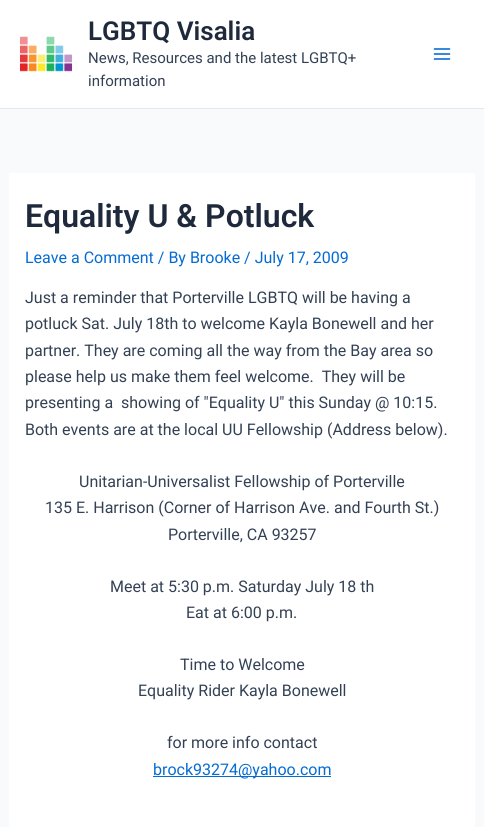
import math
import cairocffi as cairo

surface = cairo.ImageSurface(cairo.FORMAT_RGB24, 484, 827)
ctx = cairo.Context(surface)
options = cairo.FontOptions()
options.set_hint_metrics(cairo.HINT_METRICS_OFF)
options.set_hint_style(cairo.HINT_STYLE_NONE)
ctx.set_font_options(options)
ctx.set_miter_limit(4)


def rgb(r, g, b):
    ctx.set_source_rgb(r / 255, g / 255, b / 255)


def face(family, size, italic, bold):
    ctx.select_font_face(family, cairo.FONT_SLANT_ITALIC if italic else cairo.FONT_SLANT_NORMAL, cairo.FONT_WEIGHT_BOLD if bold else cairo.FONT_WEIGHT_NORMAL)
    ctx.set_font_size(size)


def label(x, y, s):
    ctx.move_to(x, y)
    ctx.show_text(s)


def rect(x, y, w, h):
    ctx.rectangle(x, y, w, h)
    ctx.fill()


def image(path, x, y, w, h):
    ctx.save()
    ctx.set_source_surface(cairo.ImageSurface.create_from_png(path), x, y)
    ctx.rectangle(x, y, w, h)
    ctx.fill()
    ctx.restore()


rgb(249, 250, 251)
ctx.paint()
rgb(255, 255, 255)
rect(0, 0, 484, 108)
rgb(226, 232, 240)
rect(0, 108, 484, 1)
image('image0.png', 20, 36, 52, 36)
face('Roboto SemiBold', 26, 0, 0)
rgb(30, 41, 59)
label(88, 40, 'LGBTQ Visalia')
face('Roboto', 15, 0, 0)
rgb(51, 65, 85)
label(88, 63, 'News, Resources and the latest LGBTQ+')
label(88, 86, 'information')
image('image1.png', 433, 48, 18, 12)
rgb(255, 255, 255)
rect(9, 173, 466, 654)
face('Roboto SemiBold', 32, 0, 0)
rgb(30, 41, 59)
label(25, 227, 'Equality U & Potluck')
face('Roboto', 16, 0, 0)
rgb(4, 107, 210)
label(25, 263, 'Leave a Comment / By Brooke / July 17, 2009')
rgb(51, 65, 85)
label(25, 303, 'Just a reminder that Porterville LGBTQ will be having a')
label(25, 329, 'potluck Sat. July 18th to welcome Kayla Bonewell and her')
label(25, 356, 'partner. They are coming all the way from the Bay area so')
label(25, 382, 'please help us make them feel welcome.  They will be')
label(25, 408, 'presenting a  showing of "Equality U" this Sunday @ 10:15.')
label(25, 435, 'Both events are at the local UU Fellowship (Address below).')
label(79, 487, 'Unitarian-Universalist Fellowship of Porterville')
label(45, 513, '135 E. Harrison (Corner of Harrison Ave. and Fourth St.)')
label(168, 540, 'Porterville, CA 93257')
label(110, 592, 'Meet at 5:30 p.m. Saturday July 18 th')
label(186, 618, 'Eat at 6:00 p.m.')
label(180, 670, 'Time to Welcome')
label(138, 696, 'Equality Rider Kayla Bonewell')
label(167, 748, 'for more info contact')
rgb(4, 107, 210)
rect(153, 776, 178, 1)
label(153, 775, 'brock93274@yahoo.com')
surface.write_to_png('render.png')
